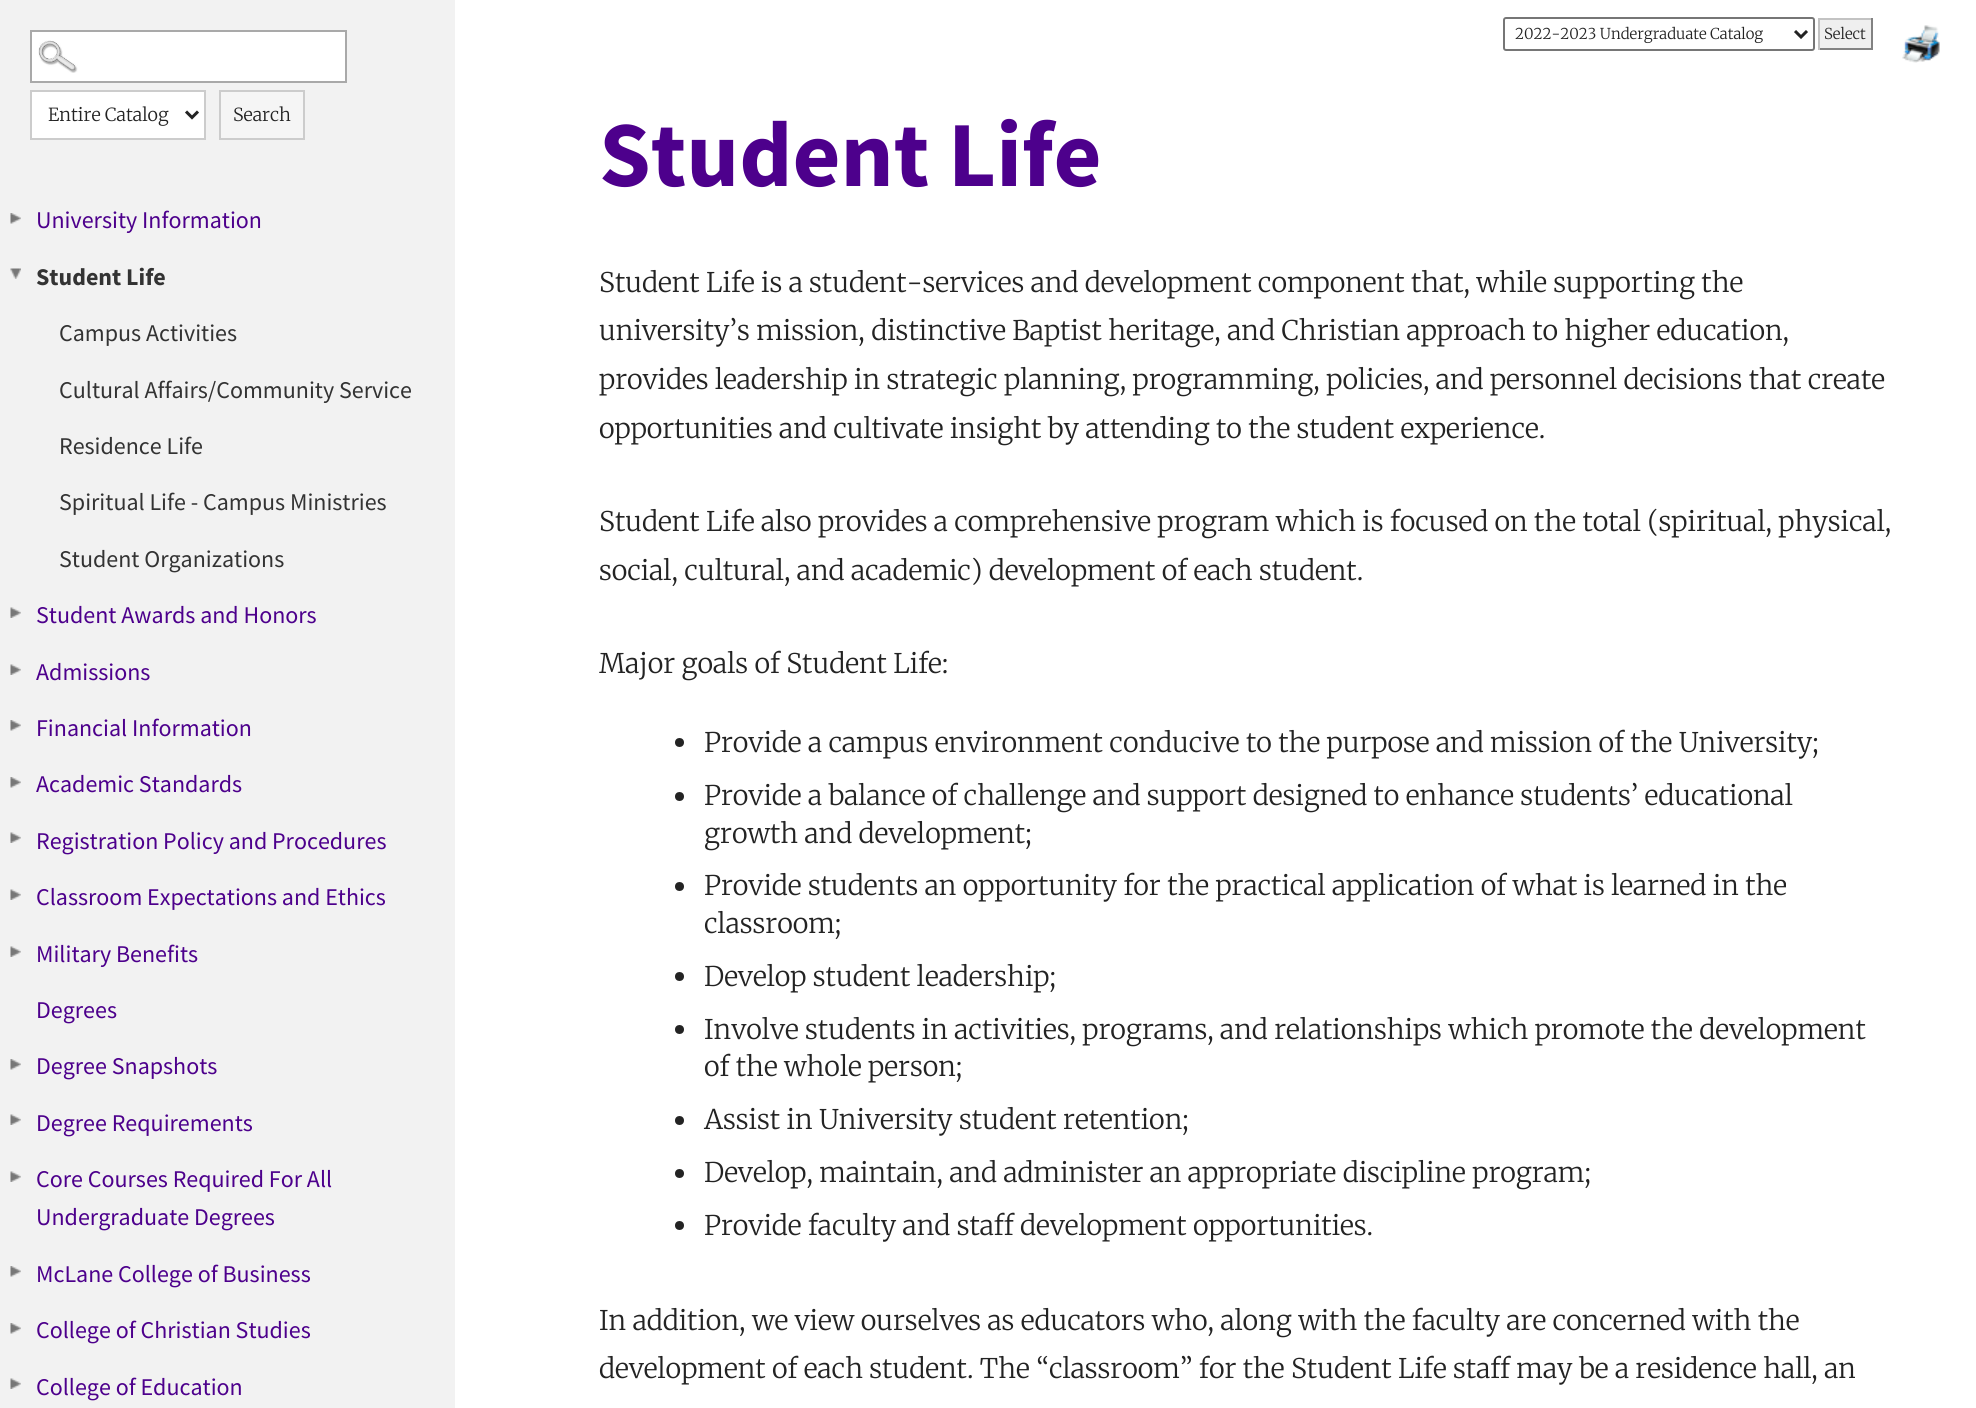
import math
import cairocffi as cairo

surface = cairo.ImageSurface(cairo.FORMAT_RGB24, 1976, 1408)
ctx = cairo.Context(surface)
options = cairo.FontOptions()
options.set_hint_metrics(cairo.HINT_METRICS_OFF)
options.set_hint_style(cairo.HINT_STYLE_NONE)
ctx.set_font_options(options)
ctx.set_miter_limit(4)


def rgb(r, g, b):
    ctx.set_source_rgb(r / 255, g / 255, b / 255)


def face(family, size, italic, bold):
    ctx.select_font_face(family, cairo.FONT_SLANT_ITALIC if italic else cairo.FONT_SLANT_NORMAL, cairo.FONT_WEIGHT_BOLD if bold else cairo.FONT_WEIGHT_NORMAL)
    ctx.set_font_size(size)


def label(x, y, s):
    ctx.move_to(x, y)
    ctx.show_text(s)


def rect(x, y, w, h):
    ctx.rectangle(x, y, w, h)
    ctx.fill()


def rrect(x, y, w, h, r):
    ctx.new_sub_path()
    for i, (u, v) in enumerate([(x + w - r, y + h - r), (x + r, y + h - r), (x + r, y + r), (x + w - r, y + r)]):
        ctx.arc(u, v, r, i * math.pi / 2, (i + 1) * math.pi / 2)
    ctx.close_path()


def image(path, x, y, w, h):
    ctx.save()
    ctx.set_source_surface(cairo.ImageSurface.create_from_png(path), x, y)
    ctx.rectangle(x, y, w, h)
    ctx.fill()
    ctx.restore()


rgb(255, 255, 255)
ctx.paint()
rgb(242, 242, 242)
rect(0, 0, 455, 1408)
rgb(255, 255, 255)
rect(32, 32, 313, 49)
image('image0.png', 38, 40, 40, 33)
ctx.rectangle(31, 31, 315, 51)
rgb(169, 169, 169)
ctx.stroke()
rgb(255, 255, 255)
ctx.rectangle(31, 91, 174, 48)
ctx.fill_preserve()
rgb(204, 204, 204)
ctx.stroke()
ctx.new_path()
ctx.move_to(186, 111.5)
ctx.line_to(192, 117.5)
ctx.line_to(198, 111.5)
rgb(35, 35, 35)
ctx.set_line_width(3)
ctx.stroke()
face('Merriweather Light', 18, 0, 0)
label(48, 121, 'Entire Catalog')
rgb(245, 245, 245)
ctx.rectangle(220, 91, 84, 48)
ctx.fill_preserve()
rgb(204, 204, 204)
ctx.set_line_width(2)
ctx.stroke()
rgb(35, 35, 35)
label(233, 121, 'Search')
image('image1.png', 10, 213, 11, 11)
face('Source Sans Pro', 24, 0, 0)
rgb(77, 0, 140)
label(36, 228, 'University Information')
image('image2.png', 10, 268, 11, 11)
face('Source Sans Pro', 24, 0, 1)
rgb(51, 51, 51)
label(36, 285, 'Student Life')
face('Source Sans Pro', 24, 0, 0)
label(59, 341, 'Campus Activities')
label(59, 398, 'Cultural Affairs/Community Service')
label(59, 454, 'Residence Life')
label(59, 510, 'Spiritual Life - Campus Ministries')
label(59, 567, 'Student Organizations')
image('image3.png', 10, 607, 11, 11)
rgb(77, 0, 140)
label(36, 623, 'Student Awards and Honors')
image('image3.png', 10, 664, 11, 11)
label(36, 680, 'Admissions')
image('image1.png', 10, 720, 11, 11)
label(36, 736, 'Financial Information')
image('image1.png', 10, 777, 11, 11)
label(36, 792, 'Academic Standards')
image('image3.png', 10, 832, 11, 11)
label(36, 849, 'Registration Policy and Procedures')
image('image3.png', 10, 889, 11, 11)
label(36, 905, 'Classroom Expectations and Ethics')
image('image3.png', 10, 946, 11, 11)
label(36, 962, 'Military Benefits')
label(36, 1018, 'Degrees')
image('image1.png', 10, 1059, 11, 11)
label(36, 1074, 'Degree Snapshots')
image('image3.png', 10, 1114, 11, 11)
label(36, 1131, 'Degree Requirements')
image('image3.png', 10, 1171, 11, 11)
label(36, 1187, 'Core Courses Required For All')
label(36, 1225, 'Undergraduate Degrees')
image('image1.png', 10, 1266, 11, 11)
label(36, 1282, 'McLane College of Business')
image('image1.png', 10, 1323, 11, 11)
label(36, 1338, 'College of Christian Studies')
image('image3.png', 10, 1378, 11, 11)
label(36, 1395, 'College of Education')
rrect(1504, 18, 310, 32, 2)
rgb(118, 118, 118)
ctx.stroke()
ctx.new_path()
ctx.move_to(1795, 31)
ctx.line_to(1801, 37)
ctx.line_to(1807, 31)
rgb(35, 35, 35)
ctx.set_line_width(3)
ctx.stroke()
face('Merriweather Light', 15, 0, 0)
label(1515, 39, '2022-2023 Undergraduate Catalog')
rgb(239, 239, 239)
rect(1820, 20, 51, 28)
rgb(195, 195, 195)
rect(1818, 18, 54, 2)
rgb(130, 130, 130)
rect(1871, 18, 2, 32)
rect(1818, 48, 54, 2)
rgb(195, 195, 195)
rect(1818, 18, 2, 32)
rgb(35, 35, 35)
label(1824, 39, 'Select')
image('image4.png', 1902, 25, 38, 38)
face('Source Sans Pro', 93, 0, 1)
rgb(77, 0, 140)
label(599, 186, 'Student Life')
face('Merriweather Light', 27, 0, 0)
rgb(35, 35, 35)
label(599, 292, 'Student Life is a student-services and development component that, while supporting the')
label(599, 340, 'university’s mission, distinctive Baptist heritage, and Christian approach to higher education,')
label(599, 389, 'provides leadership in strategic planning, programming, policies, and personnel decisions that create')
label(599, 438, 'opportunities and cultivate insight by attending to the student experience.')
label(599, 531, 'Student Life also provides a comprehensive program which is focused on the total (spiritual, physical,')
label(599, 580, 'social, cultural, and academic) development of each student.')
label(599, 673, 'Major goals of Student Life:')
ctx.new_path()
ctx.arc(679.5, 742.5, 4.5, 0, 2 * math.pi)
ctx.fill()
label(704, 752, 'Provide a campus environment conducive to the purpose and mission of the University;')
ctx.new_path()
ctx.arc(679.5, 796.5, 4.5, 0, 2 * math.pi)
ctx.fill()
label(704, 805, 'Provide a balance of challenge and support designed to enhance students’ educational')
label(704, 843, 'growth and development;')
ctx.new_path()
ctx.arc(679.5, 886.5, 4.5, 0, 2 * math.pi)
ctx.fill()
label(704, 895, 'Provide students an opportunity for the practical application of what is learned in the')
label(704, 933, 'classroom;')
ctx.new_path()
ctx.arc(679.5, 976.5, 4.5, 0, 2 * math.pi)
ctx.fill()
label(704, 986, 'Develop student leadership;')
ctx.new_path()
ctx.arc(679.5, 1029.5, 4.5, 0, 2 * math.pi)
ctx.fill()
label(704, 1039, 'Involve students in activities, programs, and relationships which promote the development')
label(704, 1076, 'of the whole person;')
ctx.new_path()
ctx.arc(679.5, 1120.5, 4.5, 0, 2 * math.pi)
ctx.fill()
label(704, 1129, 'Assist in University student retention;')
ctx.new_path()
ctx.arc(679.5, 1173.5, 4.5, 0, 2 * math.pi)
ctx.fill()
label(704, 1182, 'Develop, maintain, and administer an appropriate discipline program;')
ctx.new_path()
ctx.arc(679.5, 1225.5, 4.5, 0, 2 * math.pi)
ctx.fill()
label(704, 1235, 'Provide faculty and staff development opportunities.')
label(599, 1330, 'In addition, we view ourselves as educators who, along with the faculty are concerned with the')
label(599, 1378, 'development of each student. The “classroom” for the Student Life staff may be a residence hall, an')
surface.write_to_png('render.png')
